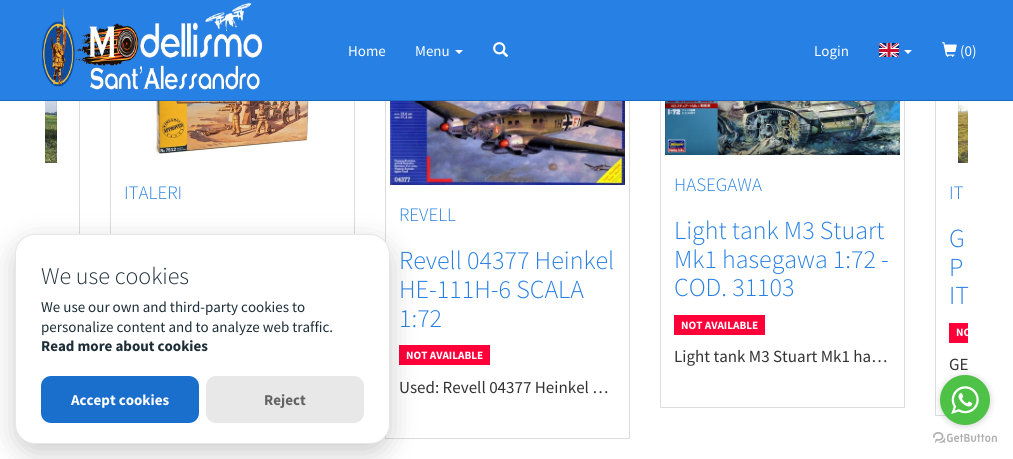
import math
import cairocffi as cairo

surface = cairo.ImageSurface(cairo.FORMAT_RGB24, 1013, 459)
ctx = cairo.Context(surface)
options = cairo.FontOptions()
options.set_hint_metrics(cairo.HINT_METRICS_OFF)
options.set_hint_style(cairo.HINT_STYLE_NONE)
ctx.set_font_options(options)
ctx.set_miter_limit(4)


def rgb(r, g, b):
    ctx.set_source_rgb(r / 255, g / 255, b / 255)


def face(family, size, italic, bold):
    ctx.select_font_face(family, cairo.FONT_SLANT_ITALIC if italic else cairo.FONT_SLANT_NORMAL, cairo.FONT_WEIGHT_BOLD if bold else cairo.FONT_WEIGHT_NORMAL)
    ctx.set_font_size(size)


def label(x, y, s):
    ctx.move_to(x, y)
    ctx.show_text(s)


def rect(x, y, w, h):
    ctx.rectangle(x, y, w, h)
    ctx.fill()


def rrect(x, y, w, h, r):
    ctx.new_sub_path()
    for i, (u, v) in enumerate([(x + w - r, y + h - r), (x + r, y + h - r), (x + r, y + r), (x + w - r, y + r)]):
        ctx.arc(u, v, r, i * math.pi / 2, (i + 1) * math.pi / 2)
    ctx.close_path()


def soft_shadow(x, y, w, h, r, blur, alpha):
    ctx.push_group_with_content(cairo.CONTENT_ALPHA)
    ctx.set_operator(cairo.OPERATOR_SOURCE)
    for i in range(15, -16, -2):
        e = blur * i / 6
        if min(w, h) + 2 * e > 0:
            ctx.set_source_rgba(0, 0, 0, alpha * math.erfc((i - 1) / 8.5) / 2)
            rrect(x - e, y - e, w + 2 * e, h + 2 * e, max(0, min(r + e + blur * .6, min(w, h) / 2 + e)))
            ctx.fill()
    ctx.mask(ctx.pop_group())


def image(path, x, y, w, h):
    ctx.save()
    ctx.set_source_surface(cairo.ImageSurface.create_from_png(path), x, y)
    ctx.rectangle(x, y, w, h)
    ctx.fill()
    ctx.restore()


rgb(255, 255, 255)
ctx.paint()
ctx.save()
ctx.rectangle(45, 30, 923, 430)
ctx.clip()
ctx.rectangle(-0.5, 30.5, 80, 385)
rgb(221, 221, 221)
ctx.set_line_width(1)
ctx.stroke()
ctx.restore()
ctx.rectangle(110.5, 30.5, 244, 385)
rgb(221, 221, 221)
ctx.set_line_width(1)
ctx.stroke()
ctx.rectangle(385.5, 30.5, 244, 408)
ctx.stroke()
ctx.rectangle(660.5, 30.5, 244, 377)
ctx.stroke()
ctx.save()
ctx.rectangle(45, 30, 923, 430)
ctx.clip()
ctx.rectangle(935.5, 30.5, 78, 385)
ctx.stroke()
ctx.restore()
rgb(39, 128, 227)
rect(0, 0, 1013, 100)
rgb(25, 103, 190)
rect(0, 100, 1013, 1)
image('image0.png', 41, 2, 222, 88)
face('Source Sans Pro', 15, 0, 0)
rgb(255, 255, 255)
label(348, 56, 'Home')
label(415, 56, 'Menu')
ctx.new_path()
ctx.move_to(455, 50)
ctx.line_to(463, 50)
ctx.line_to(459, 54)
ctx.close_path()
ctx.fill()
image('image1.png', 493, 42, 16, 15)
label(814, 56, 'Login')
image('image2.png', 879, 43, 20, 14)
ctx.new_path()
ctx.move_to(904, 50)
ctx.line_to(912, 50)
ctx.line_to(908, 54)
ctx.close_path()
ctx.fill()
image('image3.png', 942, 42, 15, 15)
label(960, 56, '(0)')
image('image4.png', 45, 101, 12, 62)
image('image5.png', 152, 101, 158, 54)
face('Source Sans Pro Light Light', 19, 0, 0)
rgb(39, 128, 227)
label(124, 199, 'ITALERI')
image('image6.png', 390, 101, 235, 84)
label(399, 221, 'REVELL')
face('Source Sans Pro Light Light', 26, 0, 0)
label(399, 269, 'Revell 04377 Heinkel')
label(399, 298, 'HE-111H-6 SCALA')
label(399, 327, '1:72')
rgb(255, 0, 57)
rect(399, 345, 91, 20)
face('Source Sans Pro', 11.25, 0, 1)
rgb(255, 255, 255)
label(406, 359, 'NOT AVAILABLE')
face('Source Sans Pro', 17, 0, 0)
rgb(51, 51, 51)
label(399, 393, 'Used: Revell 04377 Heinkel …')
image('image7.png', 665, 101, 235, 54)
face('Source Sans Pro Light Light', 19, 0, 0)
rgb(39, 128, 227)
label(674, 191, 'HASEGAWA')
face('Source Sans Pro Light Light', 26, 0, 0)
label(674, 239, 'Light tank M3 Stuart')
label(674, 268, 'Mk1 hasegawa 1:72 -')
label(674, 296, 'COD. 31103')
rgb(255, 0, 57)
rect(674, 315, 91, 20)
face('Source Sans Pro', 11.25, 0, 1)
rgb(255, 255, 255)
label(681, 329, 'NOT AVAILABLE')
face('Source Sans Pro', 17, 0, 0)
rgb(51, 51, 51)
label(674, 362, 'Light tank M3 Stuart Mk1 ha…')
image('image8.png', 958, 101, 10, 62)
face('Source Sans Pro Light Light', 19, 0, 0)
rgb(39, 128, 227)
label(949, 199, 'IT')
face('Source Sans Pro Light Light', 26, 0, 0)
label(949, 247, 'G')
label(949, 276, 'P')
label(949, 304, 'IT')
rgb(255, 0, 57)
rect(949, 323, 19, 20)
ctx.save()
ctx.rectangle(45, 30, 923, 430)
ctx.clip()
face('Source Sans Pro', 11.25, 0, 1)
rgb(255, 255, 255)
label(956, 336, 'NO')
ctx.restore()
face('Source Sans Pro', 17, 0, 0)
rgb(51, 51, 51)
label(949, 370, 'GE')
rgb(2, 2, 3)
soft_shadow(15, 243, 375, 210, 20, 14, 0.2)
rgb(255, 255, 255)
rrect(15.5, 234.5, 374, 209, 19.5)
ctx.fill_preserve()
rgb(230, 230, 230)
ctx.stroke()
face('Source Sans Pro Light Light', 24, 0, 0)
rgb(29, 46, 56)
label(41, 284, 'We use cookies')
face('Source Sans Pro', 15, 0, 0)
label(41, 312, 'We use our own and third-party cookies to')
label(41, 332, 'personalize content and to analyze web traffic.')
face('Source Sans Pro', 15, 0, 1)
label(41, 351, 'Read more about cookies')
rgb(26, 110, 204)
rrect(41, 376, 158, 47, 10)
ctx.fill()
rgb(255, 255, 255)
label(71, 405, 'Accept cookies')
rgb(232, 232, 232)
rrect(206, 376, 158, 47, 10)
ctx.fill()
rgb(99, 99, 99)
label(264, 405, 'Reject')
image('image10.png', 933, 432, 64, 11)
rgb(136, 136, 136)
soft_shadow(940, 376, 50, 50, 25, 3.5, 0.4)
rgb(77, 194, 71)
ctx.arc(965, 400, 25, 0, 2 * math.pi)
ctx.fill()
image('image9.png', 951, 386, 28, 28)
surface.write_to_png('render.png')
